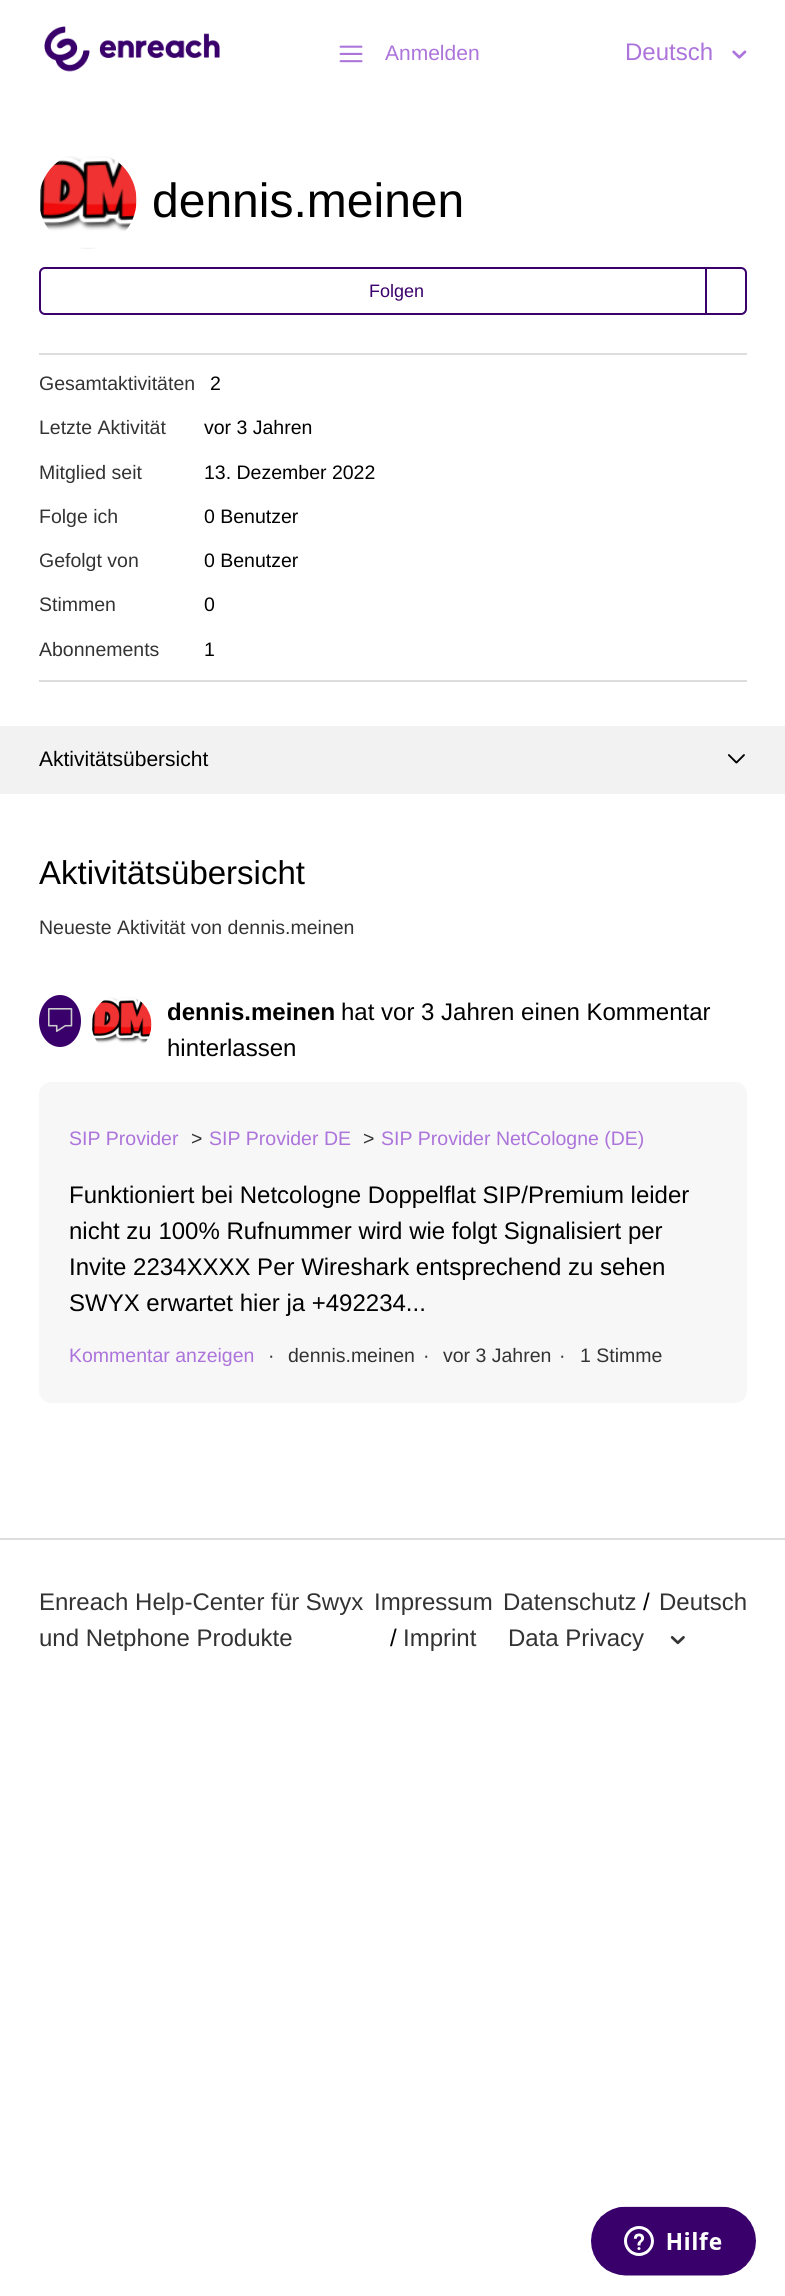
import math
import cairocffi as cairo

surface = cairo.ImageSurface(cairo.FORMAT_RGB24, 785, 2296)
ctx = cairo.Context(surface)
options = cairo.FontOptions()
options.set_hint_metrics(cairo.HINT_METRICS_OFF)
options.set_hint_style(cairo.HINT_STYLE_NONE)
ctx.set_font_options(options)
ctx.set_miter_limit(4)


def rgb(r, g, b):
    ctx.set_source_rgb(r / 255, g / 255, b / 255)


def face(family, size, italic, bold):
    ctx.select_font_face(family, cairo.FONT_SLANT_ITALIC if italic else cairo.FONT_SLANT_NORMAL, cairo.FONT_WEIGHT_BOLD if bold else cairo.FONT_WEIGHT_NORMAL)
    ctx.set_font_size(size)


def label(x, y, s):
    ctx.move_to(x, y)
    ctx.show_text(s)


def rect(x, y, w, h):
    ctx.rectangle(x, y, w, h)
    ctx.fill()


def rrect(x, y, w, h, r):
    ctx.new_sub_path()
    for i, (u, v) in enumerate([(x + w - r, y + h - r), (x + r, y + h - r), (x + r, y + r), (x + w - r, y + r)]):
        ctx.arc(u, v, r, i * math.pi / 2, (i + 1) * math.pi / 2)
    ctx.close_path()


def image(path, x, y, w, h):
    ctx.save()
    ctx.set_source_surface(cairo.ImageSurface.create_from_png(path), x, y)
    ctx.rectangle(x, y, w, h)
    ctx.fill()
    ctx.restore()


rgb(255, 255, 255)
ctx.paint()
image('image0.png', 44, 26, 176, 46)
image('image1.png', 339, 45, 24, 18)
face('Liberation Sans', 21, 0, 0)
rgb(172, 116, 219)
label(385, 60, 'Anmelden')
face('Liberation Sans', 24, 0, 0)
label(625, 60, 'Deutsch')
image('image2.png', 732, 50, 15, 9)
image('image3.png', 40, 156, 97, 93)
face('Liberation Sans', 48, 0, 0)
rgb(0, 0, 0)
label(152, 217, 'dennis.meinen')
rrect(40, 268, 706, 46, 5)
rgb(57, 0, 108)
ctx.stroke()
face('Liberation Sans', 18, 0, 0)
label(369, 297, 'Folgen')
rect(705, 269, 2, 45)
rgb(221, 221, 221)
rect(39, 353, 708, 2)
face('Liberation Sans', 19.5, 0, 0)
rgb(51, 51, 51)
label(39, 390, 'Gesamtaktivitäten')
rgb(0, 0, 0)
label(210, 390, '2')
rgb(51, 51, 51)
label(39, 434, 'Letzte Aktivität')
rgb(0, 0, 0)
label(204, 434, 'vor 3 Jahren')
rgb(51, 51, 51)
label(39, 479, 'Mitglied seit')
rgb(0, 0, 0)
label(204, 479, '13. Dezember 2022')
rgb(221, 221, 221)
rect(39, 680, 708, 2)
rgb(51, 51, 51)
label(39, 523, 'Folge ich')
rgb(0, 0, 0)
label(204, 523, '0 Benutzer')
rgb(51, 51, 51)
label(39, 567, 'Gefolgt von')
rgb(0, 0, 0)
label(204, 567, '0 Benutzer')
rgb(51, 51, 51)
label(39, 611, 'Stimmen')
rgb(0, 0, 0)
label(204, 611, '0')
rgb(51, 51, 51)
label(39, 656, 'Abonnements')
rgb(0, 0, 0)
label(204, 656, '1')
rgb(242, 242, 242)
rect(0, 726, 785, 68)
face('Liberation Sans', 21, 0, 0)
rgb(0, 0, 0)
label(39, 766, 'Aktivitätsübersicht')
image('image4.png', 728, 754, 17, 10)
face('Liberation Sans', 33, 0, 0)
label(39, 884, 'Aktivitätsübersicht')
face('Liberation Sans', 19.5, 0, 0)
rgb(51, 51, 51)
label(39, 934, 'Neueste Aktivität von dennis.meinen')
rgb(57, 0, 108)
ctx.new_path()
ctx.move_to(60, 995)
ctx.curve_to(71.5, 995, 81, 1006.5, 81, 1021)
ctx.curve_to(81, 1035.5, 71.5, 1047, 60, 1047)
ctx.curve_to(48.5, 1047, 39, 1035.5, 39, 1021)
ctx.curve_to(39, 1006.5, 48.5, 995, 60, 995)
ctx.close_path()
ctx.fill()
image('image5.png', 48, 1008, 25, 24)
image('image6.png', 92, 997, 60, 47)
face('Liberation Sans', 24, 0, 1)
rgb(0, 0, 0)
label(167, 1020, 'dennis.meinen')
face('Liberation Sans', 24, 0, 0)
label(341, 1020, 'hat vor 3 Jahren einen Kommentar')
label(167, 1056, 'hinterlassen')
rgb(247, 247, 247)
rrect(39, 1082, 708, 321, 12)
ctx.fill()
face('Liberation Sans', 19.5, 0, 0)
rgb(172, 116, 219)
label(69, 1145, 'SIP Provider')
rgb(51, 51, 51)
label(191, 1145, '>')
rgb(172, 116, 219)
label(209, 1145, 'SIP Provider DE')
rgb(51, 51, 51)
label(363, 1145, '>')
rgb(172, 116, 219)
label(381, 1145, 'SIP Provider NetCologne (DE)')
face('Liberation Sans', 24, 0, 0)
rgb(0, 0, 0)
label(69, 1203, 'Funktioniert bei Netcologne Doppelflat SIP/Premium leider')
label(69, 1239, 'nicht zu 100% Rufnummer wird wie folgt Signalisiert per')
label(69, 1275, 'Invite 2234XXXX Per Wireshark entsprechend zu sehen')
label(69, 1311, 'SWYX erwartet hier ja +492234...')
face('Liberation Sans', 19.5, 0, 0)
rgb(172, 116, 219)
label(69, 1362, 'Kommentar anzeigen')
rgb(51, 51, 51)
label(268, 1362, '·')
label(288, 1362, 'dennis.meinen')
label(423, 1362, '·')
label(443, 1362, 'vor 3 Jahren')
label(559, 1362, '·')
label(580, 1362, '1 Stimme')
rgb(221, 221, 221)
rect(0, 1538, 785, 2)
face('Liberation Sans', 24, 0, 0)
rgb(51, 51, 51)
label(39, 1610, 'Enreach Help-Center für Swyx')
label(39, 1646, 'und Netphone Produkte')
label(374, 1610, 'Impressum')
rgb(0, 0, 0)
label(390, 1646, '/')
rgb(51, 51, 51)
label(403, 1646, 'Imprint')
label(503, 1610, 'Datenschutz')
rgb(0, 0, 0)
label(643, 1610, '/')
rgb(51, 51, 51)
label(508, 1646, 'Data Privacy')
label(659, 1610, 'Deutsch')
image('image7.png', 670, 1636, 15, 9)
image('image8.png', 591, 2206, 165, 70)
surface.write_to_png('render.png')
